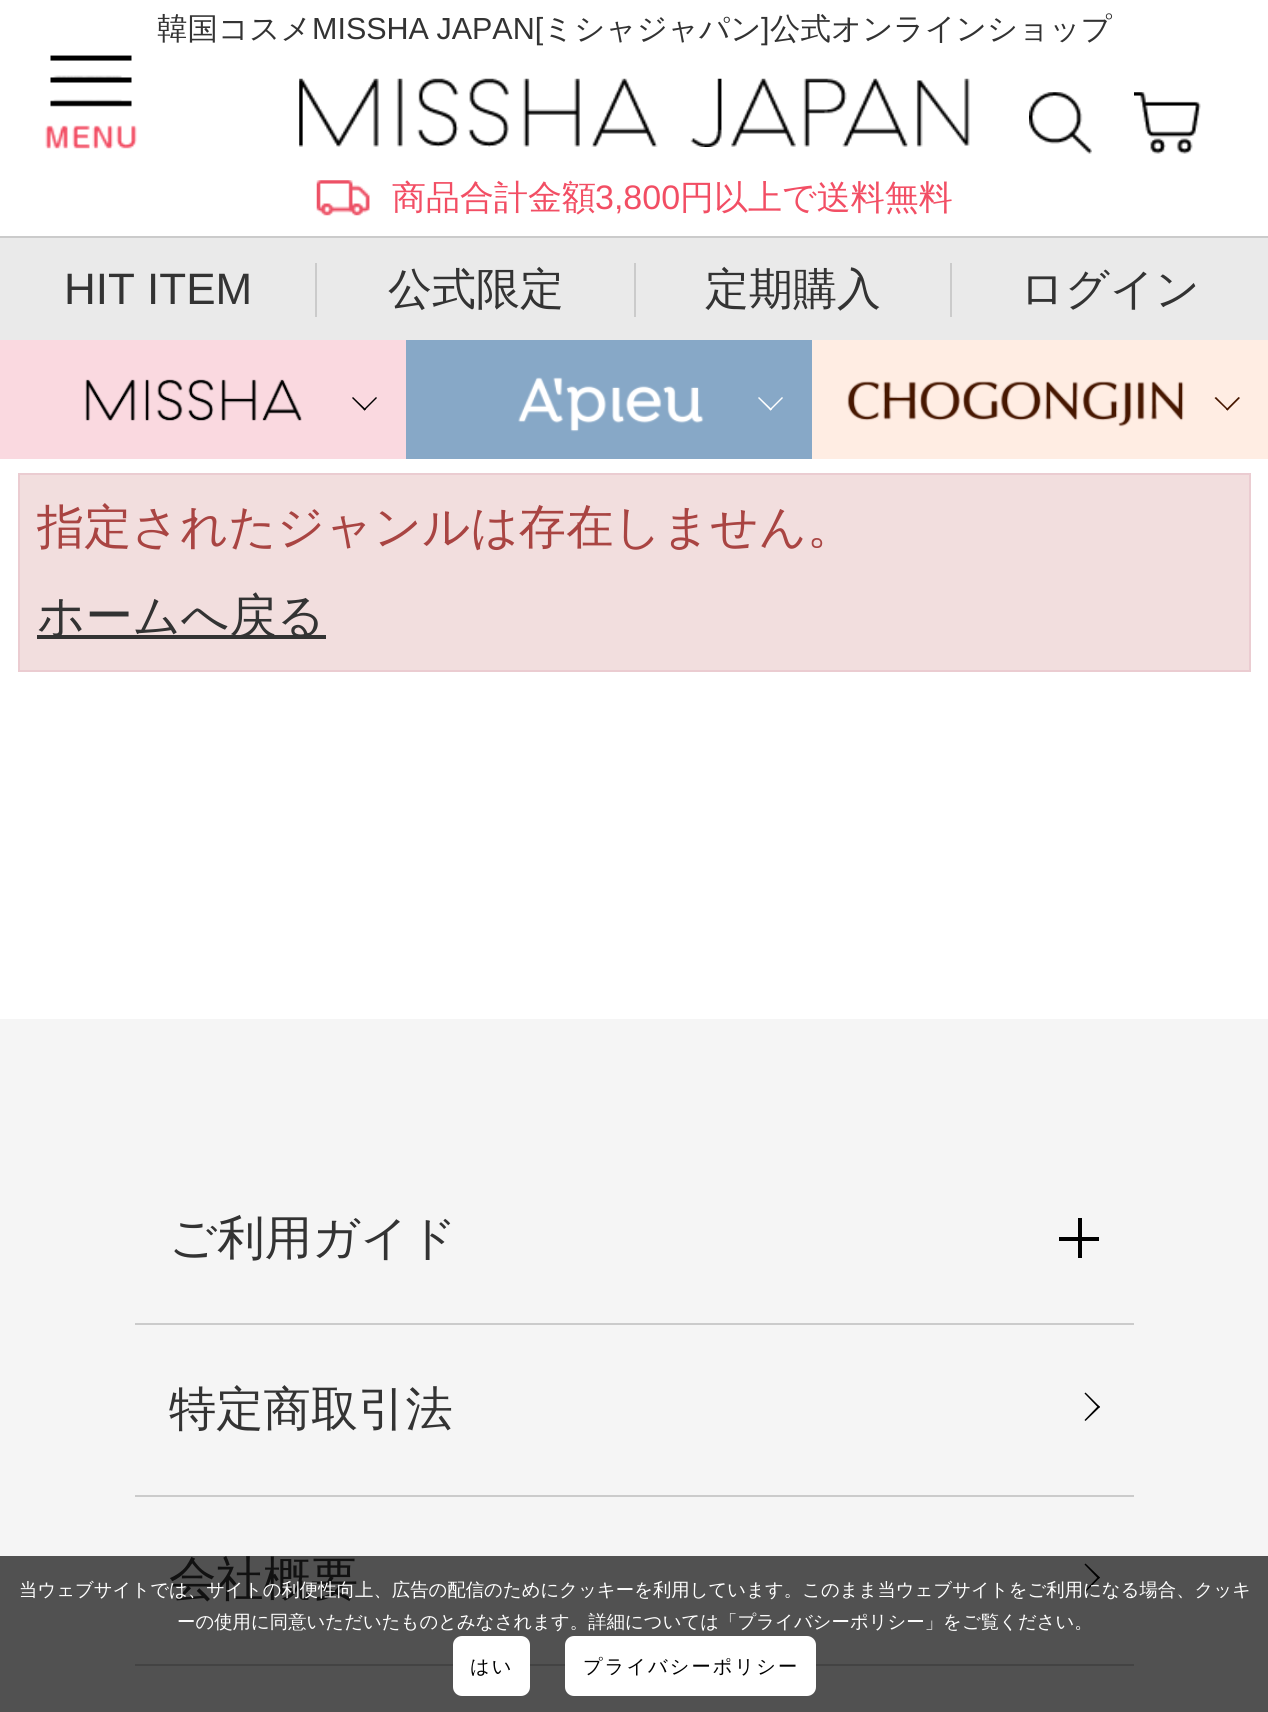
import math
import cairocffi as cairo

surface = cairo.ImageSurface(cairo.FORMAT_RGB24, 1268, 1712)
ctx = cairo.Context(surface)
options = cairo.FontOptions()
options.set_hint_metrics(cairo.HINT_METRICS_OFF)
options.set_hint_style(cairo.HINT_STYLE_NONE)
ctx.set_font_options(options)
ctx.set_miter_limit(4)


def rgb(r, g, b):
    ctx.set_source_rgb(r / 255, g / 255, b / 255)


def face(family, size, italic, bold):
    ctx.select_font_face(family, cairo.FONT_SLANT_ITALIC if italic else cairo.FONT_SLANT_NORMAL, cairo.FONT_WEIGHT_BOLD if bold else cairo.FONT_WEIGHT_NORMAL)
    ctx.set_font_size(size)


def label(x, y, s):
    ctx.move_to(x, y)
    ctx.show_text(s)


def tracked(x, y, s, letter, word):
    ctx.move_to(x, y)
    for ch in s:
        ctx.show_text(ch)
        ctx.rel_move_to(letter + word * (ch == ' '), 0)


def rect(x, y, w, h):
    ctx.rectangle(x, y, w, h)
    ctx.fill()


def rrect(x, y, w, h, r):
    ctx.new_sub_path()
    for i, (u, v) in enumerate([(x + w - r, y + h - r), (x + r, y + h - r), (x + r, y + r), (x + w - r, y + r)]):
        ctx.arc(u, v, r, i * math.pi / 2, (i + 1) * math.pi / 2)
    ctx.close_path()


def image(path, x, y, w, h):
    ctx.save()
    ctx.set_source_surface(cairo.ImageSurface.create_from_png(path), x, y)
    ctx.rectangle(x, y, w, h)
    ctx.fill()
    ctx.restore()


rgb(255, 255, 255)
ctx.paint()
image('image0.png', 45, 55, 92, 94)
face('WenQuanYi Zen Hei Medium', 30.5, 0, 0)
rgb(51, 51, 51)
label(157, 39, '韓国コスメ')
face('Liberation Sans', 30.5, 0, 0)
tracked(312, 39, 'MISSHA JAPAN[', 0, -1)
face('WenQuanYi Zen Hei Medium', 30.5, 0, 0)
label(543, 39, 'ミシャジャパン')
face('Liberation Sans', 30.5, 0, 0)
label(761, 39, ']')
face('WenQuanYi Zen Hei Medium', 30.5, 0, 0)
label(770, 39, '公式オンラインショップ')
image('image1.png', 299, 78, 671, 69)
image('image2.png', 316, 180, 54, 36)
face('WenQuanYi Zen Hei Medium', 34, 0, 0)
rgb(242, 78, 100)
label(392, 209, '商品合計金額')
face('Liberation Sans', 34, 0, 0)
label(595, 209, '3,800')
face('WenQuanYi Zen Hei Medium', 34, 0, 0)
label(680, 209, '円以上で送料無料')
image('image3.png', 1029, 92, 63, 62)
image('image4.png', 1134, 92, 67, 62)
rgb(234, 234, 234)
rect(0, 238, 1268, 102)
rgb(203, 203, 203)
rect(0, 236, 1268, 2)
face('Liberation Sans', 44, 0, 0)
rgb(51, 51, 51)
label(64, 304, 'HIT ITEM')
rgb(203, 203, 203)
rect(315, 263, 2, 54)
face('WenQuanYi Zen Hei Medium', 44, 0, 0)
rgb(51, 51, 51)
label(388, 304, '公式限定')
rgb(203, 203, 203)
rect(634, 263, 2, 54)
rgb(51, 51, 51)
label(705, 304, '定期購入')
rgb(203, 203, 203)
rect(950, 263, 2, 54)
rgb(51, 51, 51)
label(1020, 304, 'ログイン')
rgb(250, 217, 224)
rect(0, 340, 406, 119)
image('image5.png', 85, 379, 217, 42)
rgb(0, 0, 0)
ctx.new_path()
ctx.move_to(376, 397)
ctx.line_to(377, 398)
ctx.line_to(364.5, 410.5)
ctx.line_to(363.5, 409.5)
ctx.close_path()
ctx.fill()
ctx.new_path()
ctx.move_to(353, 397)
ctx.line_to(366, 409.5)
ctx.line_to(364.5, 410.5)
ctx.line_to(352, 398)
ctx.close_path()
ctx.fill()
rgb(135, 168, 199)
rect(406, 340, 406, 119)
image('image6.png', 518, 377, 186, 55)
rgb(255, 255, 255)
ctx.new_path()
ctx.move_to(782, 397)
ctx.line_to(783, 398)
ctx.line_to(770.5, 410.5)
ctx.line_to(769.5, 409.5)
ctx.close_path()
ctx.fill()
ctx.new_path()
ctx.move_to(759, 397)
ctx.line_to(772, 409.5)
ctx.line_to(770.5, 410.5)
ctx.line_to(758, 398)
ctx.close_path()
ctx.fill()
rgb(255, 237, 227)
rect(812, 340, 456, 119)
image('image7.png', 847, 381, 337, 46)
rgb(71, 23, 0)
ctx.new_path()
ctx.move_to(1238.5, 397)
ctx.line_to(1240, 398)
ctx.line_to(1227.5, 410.5)
ctx.line_to(1226, 409.5)
ctx.close_path()
ctx.fill()
ctx.new_path()
ctx.move_to(1216, 397)
ctx.line_to(1228.5, 409.5)
ctx.line_to(1227.5, 410.5)
ctx.line_to(1214.5, 398)
ctx.close_path()
ctx.fill()
rgb(242, 222, 222)
ctx.rectangle(19, 474, 1231, 197)
ctx.fill_preserve()
rgb(235, 204, 209)
ctx.stroke()
face('WenQuanYi Zen Hei Medium', 47.3, 0, 0)
rgb(169, 68, 66)
label(37, 543, '指定されたジャンルは存在しません。')
rgb(51, 51, 51)
rect(37, 635, 289, 4)
label(37, 632, 'ホームへ戻る')
rgb(245, 245, 245)
rect(0, 1019, 1268, 537)
rgb(81, 81, 81)
rect(0, 1556, 1268, 156)
rgb(203, 203, 203)
rect(135, 1323, 999, 2)
rgb(51, 51, 51)
label(169, 1254, 'ご利用ガイド')
rgb(0, 0, 0)
rect(1059, 1237, 40, 4)
rect(1078, 1218, 4, 40)
rgb(203, 203, 203)
rect(135, 1495, 999, 2)
rgb(51, 51, 51)
label(169, 1425, '特定商取引法')
rgb(0, 0, 0)
ctx.new_path()
ctx.move_to(1085.5, 1392.5)
ctx.line_to(1100, 1407)
ctx.line_to(1098.5, 1408)
ctx.line_to(1084.5, 1393.5)
ctx.close_path()
ctx.fill()
ctx.new_path()
ctx.move_to(1098.5, 1405.5)
ctx.line_to(1100, 1407)
ctx.line_to(1085.5, 1421)
ctx.line_to(1084.5, 1420)
ctx.close_path()
ctx.fill()
rgb(67, 67, 67)
rect(135, 1664, 999, 2)
rgb(17, 17, 17)
label(169, 1595, '会社概要')
rgb(0, 0, 0)
ctx.new_path()
ctx.move_to(1085.5, 1563.5)
ctx.line_to(1100, 1577.5)
ctx.line_to(1098.5, 1579)
ctx.line_to(1084.5, 1564.5)
ctx.close_path()
ctx.fill()
ctx.new_path()
ctx.move_to(1098.5, 1576.5)
ctx.line_to(1100, 1577.5)
ctx.line_to(1085.5, 1592)
ctx.line_to(1084.5, 1591)
ctx.close_path()
ctx.fill()
face('WenQuanYi Zen Hei Medium', 18.38, 0, 0)
rgb(255, 255, 255)
label(19, 1596, '当ウェブサイトでは、サイトの利便性向上、広告の配信のためにクッキーを利用しています。このまま当ウェブサイトをご利用になる場合、クッキ')
label(177, 1628, 'ーの使用に同意いただいたものとみなされます。詳細については「プライバシーポリシー」をご覧ください。')
rrect(453, 1636, 77, 60, 9)
ctx.fill()
face('WenQuanYi Zen Hei Medium', 19.25, 0, 0)
rgb(0, 0, 0)
tracked(470, 1673, 'はい', 2, 0)
rgb(255, 255, 255)
rrect(565, 1636, 251, 60, 9)
ctx.fill()
rgb(0, 0, 0)
tracked(583, 1673, 'プライバシーポリシー', 2, 0)
surface.write_to_png('render.png')
